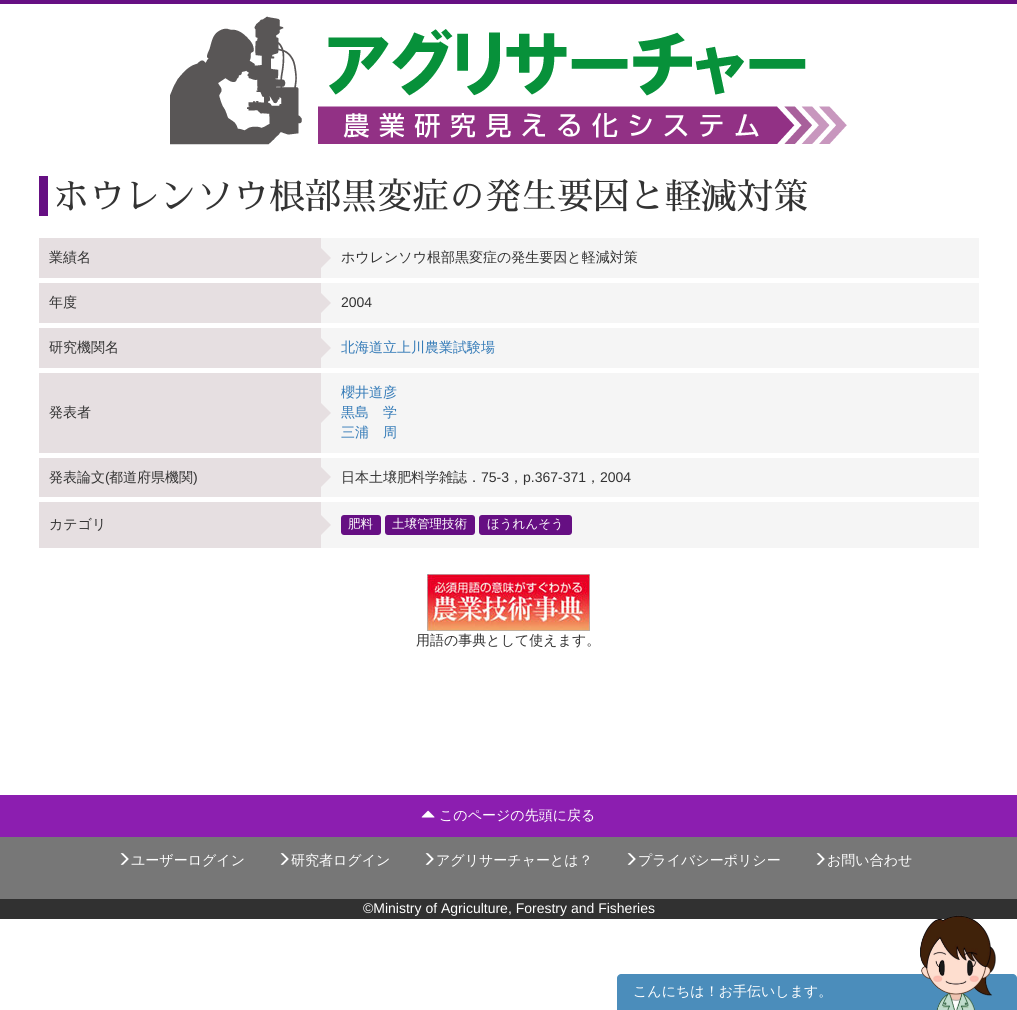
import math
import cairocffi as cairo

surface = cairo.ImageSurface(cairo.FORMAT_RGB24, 1017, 1010)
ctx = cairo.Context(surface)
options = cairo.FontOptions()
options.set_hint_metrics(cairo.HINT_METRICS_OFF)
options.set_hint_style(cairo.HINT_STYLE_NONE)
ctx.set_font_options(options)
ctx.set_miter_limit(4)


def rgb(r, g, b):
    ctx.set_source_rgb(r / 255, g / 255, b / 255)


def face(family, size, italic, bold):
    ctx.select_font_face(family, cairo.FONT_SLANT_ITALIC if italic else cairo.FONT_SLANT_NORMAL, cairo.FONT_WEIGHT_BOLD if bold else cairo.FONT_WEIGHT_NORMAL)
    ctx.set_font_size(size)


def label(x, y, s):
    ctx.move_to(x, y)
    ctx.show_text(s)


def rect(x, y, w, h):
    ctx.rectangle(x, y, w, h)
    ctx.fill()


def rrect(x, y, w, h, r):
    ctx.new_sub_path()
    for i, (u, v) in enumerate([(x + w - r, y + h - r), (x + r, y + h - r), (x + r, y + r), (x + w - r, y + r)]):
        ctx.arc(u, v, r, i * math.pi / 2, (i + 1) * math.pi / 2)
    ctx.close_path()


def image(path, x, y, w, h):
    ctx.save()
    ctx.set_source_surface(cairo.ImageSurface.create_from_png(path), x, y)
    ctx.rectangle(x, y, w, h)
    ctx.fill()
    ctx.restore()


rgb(255, 255, 255)
ctx.paint()
rgb(102, 15, 131)
rect(0, 0, 1017, 4)
image('image0.png', 170, 16, 677, 129)
rect(39, 176, 9, 40)
face('Sawarabi Mincho', 36, 0, 0)
rgb(51, 51, 51)
label(53, 209, 'ホウレンソウ根部黒変症の発生要因と軽減対策')
rgb(230, 223, 225)
rect(39, 238, 282, 40)
face('WenQuanYi Zen Hei Medium', 14, 0, 0)
rgb(51, 51, 51)
label(49, 262, '業績名')
rgb(245, 245, 245)
rect(321, 238, 658, 40)
rgb(230, 223, 225)
ctx.new_path()
ctx.move_to(321, 268)
ctx.line_to(321, 248)
ctx.line_to(331, 258)
ctx.close_path()
ctx.fill()
rgb(51, 51, 51)
label(341, 262, 'ホウレンソウ根部黒変症の発生要因と軽減対策')
rgb(230, 223, 225)
rect(39, 283, 282, 40)
rgb(51, 51, 51)
label(49, 307, '年度')
rgb(245, 245, 245)
rect(321, 283, 658, 40)
rgb(230, 223, 225)
ctx.new_path()
ctx.move_to(321, 313)
ctx.line_to(321, 293)
ctx.line_to(331, 303)
ctx.close_path()
ctx.fill()
face('Liberation Sans', 14, 0, 0)
rgb(51, 51, 51)
label(341, 307, '2004')
rgb(230, 223, 225)
rect(39, 328, 282, 40)
face('WenQuanYi Zen Hei Medium', 14, 0, 0)
rgb(51, 51, 51)
label(49, 352, '研究機関名')
rgb(245, 245, 245)
rect(321, 328, 658, 40)
rgb(230, 223, 225)
ctx.new_path()
ctx.move_to(321, 358)
ctx.line_to(321, 338)
ctx.line_to(331, 348)
ctx.close_path()
ctx.fill()
rgb(51, 122, 183)
label(341, 352, '北海道立上川農業試験場')
rgb(230, 223, 225)
rect(39, 373, 282, 80)
rgb(51, 51, 51)
label(49, 417, '発表者')
rgb(245, 245, 245)
rect(321, 373, 658, 80)
rgb(230, 223, 225)
ctx.new_path()
ctx.move_to(321, 423)
ctx.line_to(321, 403)
ctx.line_to(331, 413)
ctx.close_path()
ctx.fill()
rgb(51, 122, 183)
label(341, 397, '櫻井道彦')
label(341, 417, '黒島　学')
label(341, 437, '三浦　周')
rgb(230, 223, 225)
rect(39, 458, 282, 39)
rgb(51, 51, 51)
label(49, 482, '発表論文')
face('Liberation Sans', 14, 0, 0)
label(105, 482, '(')
face('WenQuanYi Zen Hei Medium', 14, 0, 0)
label(109, 482, '都道府県機関')
face('Liberation Sans', 14, 0, 0)
label(193, 482, ')')
rgb(245, 245, 245)
rect(321, 458, 658, 39)
rgb(230, 223, 225)
ctx.new_path()
ctx.move_to(321, 487)
ctx.line_to(321, 467)
ctx.line_to(331, 477)
ctx.close_path()
ctx.fill()
face('WenQuanYi Zen Hei Medium', 14, 0, 0)
rgb(51, 51, 51)
label(341, 482, '日本土壌肥料学雑誌．')
face('Liberation Sans', 14, 0, 0)
label(481, 482, '75-3')
face('WenQuanYi Zen Hei Medium', 14, 0, 0)
label(509, 482, '，')
face('Liberation Sans', 14, 0, 0)
label(523, 482, 'p.367-371')
face('WenQuanYi Zen Hei Medium', 14, 0, 0)
label(586, 482, '，')
face('Liberation Sans', 14, 0, 0)
label(600, 482, '2004')
rgb(230, 223, 225)
rect(39, 502, 282, 46)
face('WenQuanYi Zen Hei Medium', 14, 0, 0)
rgb(51, 51, 51)
label(49, 529, 'カテゴリ')
rgb(245, 245, 245)
rect(321, 502, 658, 46)
rgb(230, 223, 225)
ctx.new_path()
ctx.move_to(321, 535)
ctx.line_to(321, 515)
ctx.line_to(331, 525)
ctx.close_path()
ctx.fill()
rgb(102, 15, 131)
rrect(341, 515, 40, 20, 3)
ctx.fill()
face('WenQuanYi Zen Hei Medium', 12.5, 0, 0)
rgb(255, 255, 255)
label(348, 528, '肥料')
rgb(102, 15, 131)
rrect(385, 515, 90, 20, 3)
ctx.fill()
rgb(255, 255, 255)
label(392, 528, '土壌管理技術')
rgb(102, 15, 131)
rrect(479, 515, 93, 20, 3)
ctx.fill()
rgb(255, 255, 255)
label(487, 528, 'ほうれんそう')
image('image1.png', 427, 574, 163, 57)
face('WenQuanYi Zen Hei Medium', 14, 0, 0)
rgb(51, 51, 51)
label(416, 645, '用語の事典として使えます。')
rgb(119, 119, 119)
rect(0, 837, 1017, 62)
rgb(140, 30, 176)
rect(0, 795, 1017, 42)
image('image2.png', 421, 810, 14, 8)
rgb(255, 255, 255)
label(439, 820, 'このページの先頭に戻る')
image('image3.png', 120, 853, 9, 12)
label(131, 865, 'ユーザーログイン')
image('image3.png', 280, 853, 9, 12)
label(291, 865, '研究者ログイン')
image('image3.png', 425, 853, 9, 12)
label(436, 865, 'アグリサーチャーとは？')
image('image3.png', 627, 853, 9, 12)
label(638, 865, 'プライバシーポリシー')
image('image3.png', 816, 853, 9, 12)
label(827, 865, 'お問い合わせ')
rgb(49, 49, 49)
rect(0, 899, 1017, 20)
face('Liberation Sans', 14, 0, 0)
rgb(255, 255, 255)
label(363, 913, '©Ministry of Agriculture, Forestry and Fisheries')
rgb(75, 141, 187)
ctx.new_path()
ctx.move_to(621, 974)
ctx.line_to(1013, 974)
ctx.curve_to(1015, 974, 1017, 976, 1017, 978)
ctx.line_to(1017, 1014)
ctx.line_to(617, 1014)
ctx.line_to(617, 978)
ctx.curve_to(617, 976, 619, 974, 621, 974)
ctx.close_path()
ctx.fill()
face('WenQuanYi Zen Hei Medium', 14, 0, 0)
rgb(255, 255, 255)
label(633, 996, 'こんにちは！お手伝いします。')
image('image4.png', 920, 915, 76, 95)
surface.write_to_png('render.png')
